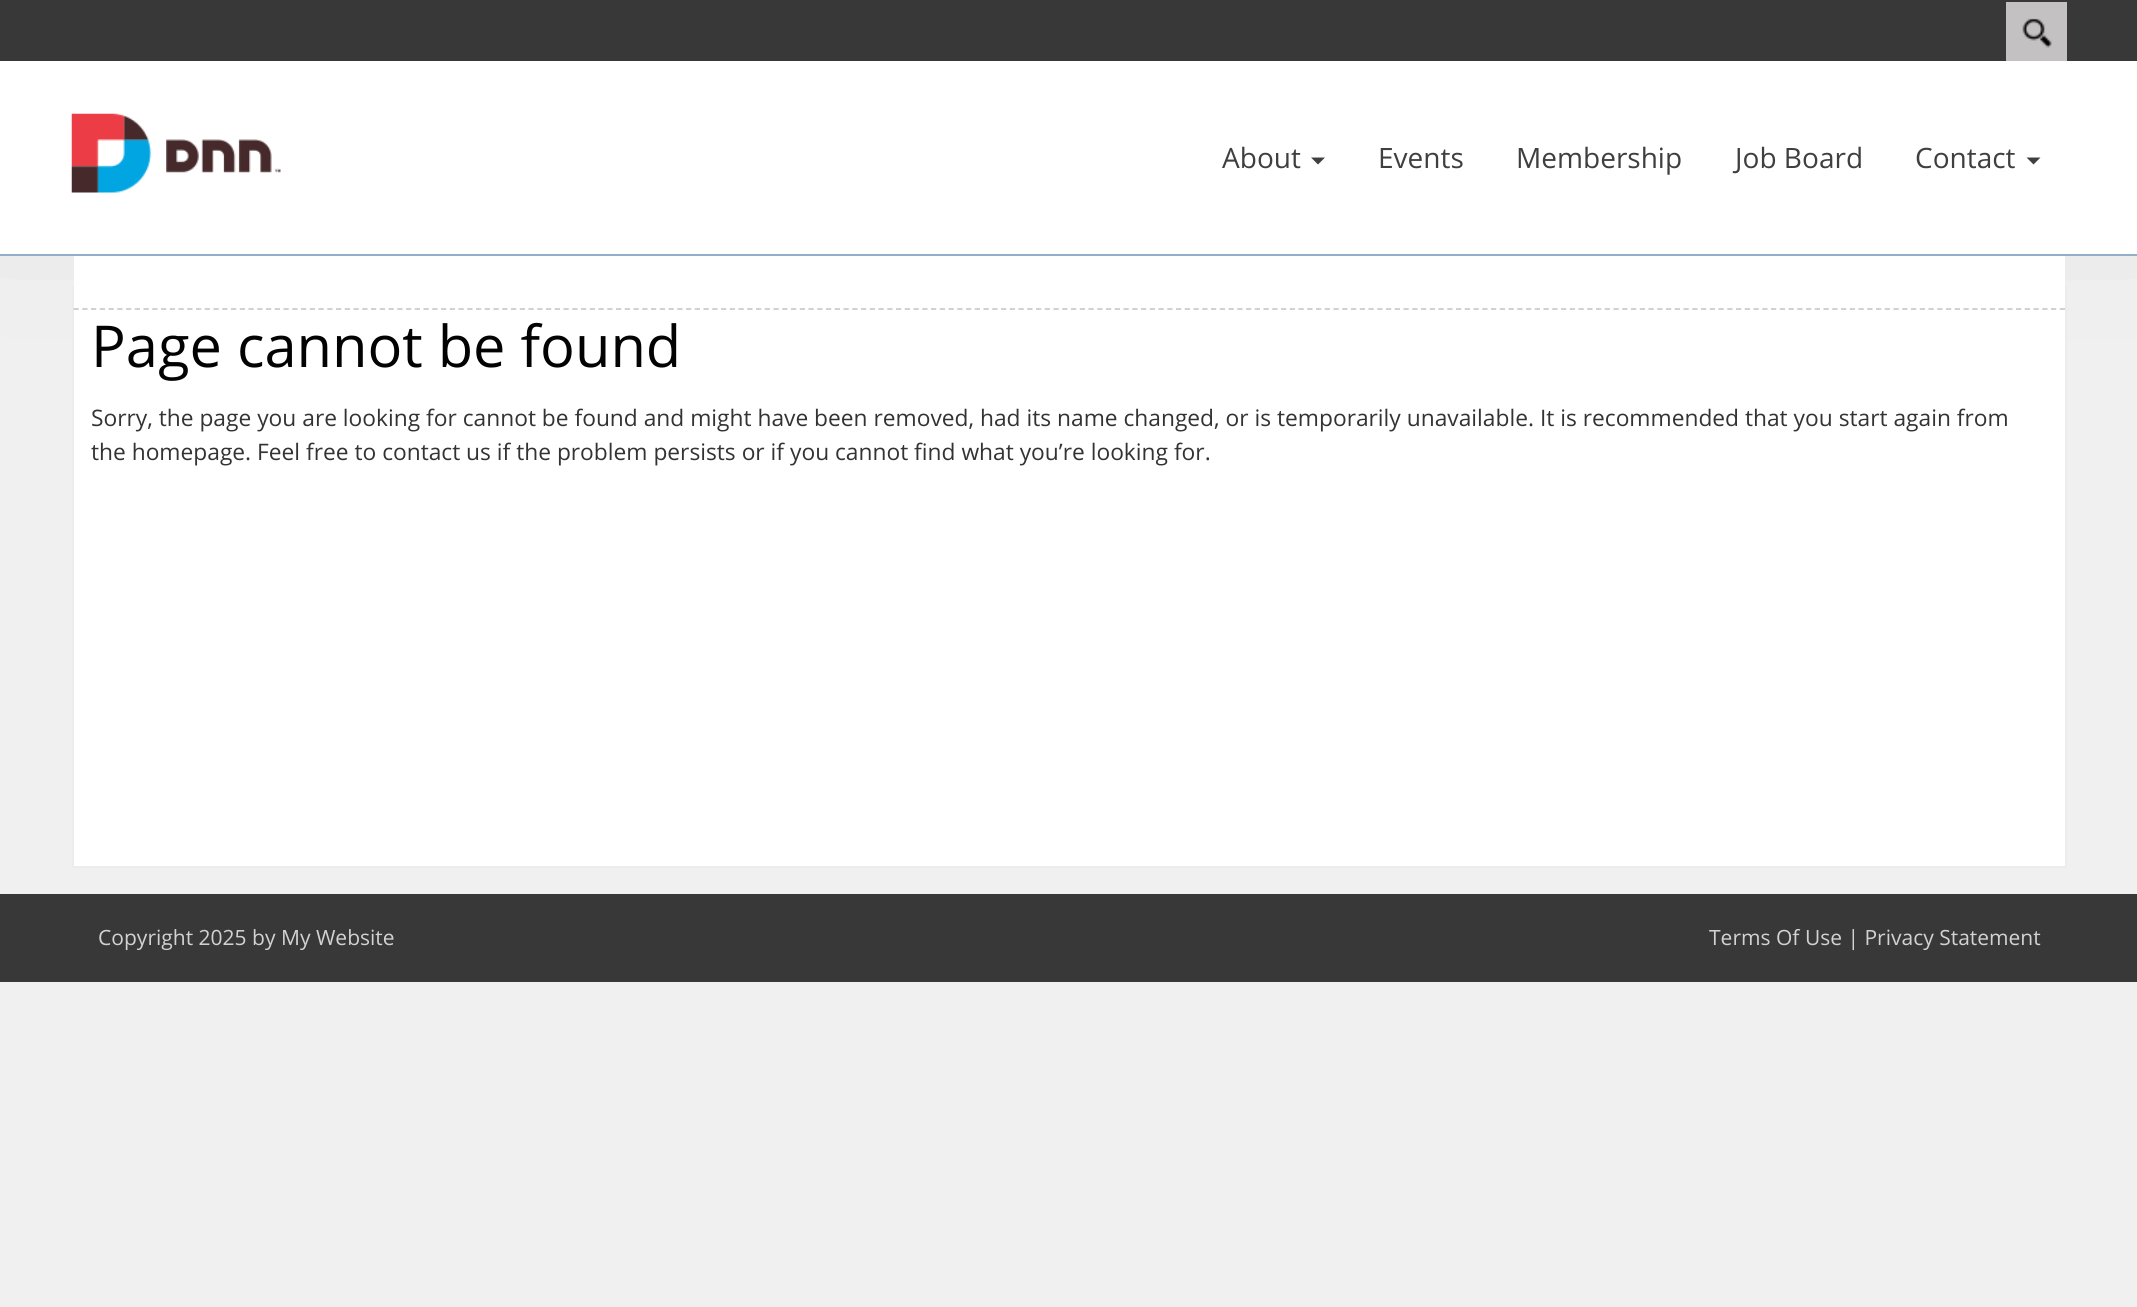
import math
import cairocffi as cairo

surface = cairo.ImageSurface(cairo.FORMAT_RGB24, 2137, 1307)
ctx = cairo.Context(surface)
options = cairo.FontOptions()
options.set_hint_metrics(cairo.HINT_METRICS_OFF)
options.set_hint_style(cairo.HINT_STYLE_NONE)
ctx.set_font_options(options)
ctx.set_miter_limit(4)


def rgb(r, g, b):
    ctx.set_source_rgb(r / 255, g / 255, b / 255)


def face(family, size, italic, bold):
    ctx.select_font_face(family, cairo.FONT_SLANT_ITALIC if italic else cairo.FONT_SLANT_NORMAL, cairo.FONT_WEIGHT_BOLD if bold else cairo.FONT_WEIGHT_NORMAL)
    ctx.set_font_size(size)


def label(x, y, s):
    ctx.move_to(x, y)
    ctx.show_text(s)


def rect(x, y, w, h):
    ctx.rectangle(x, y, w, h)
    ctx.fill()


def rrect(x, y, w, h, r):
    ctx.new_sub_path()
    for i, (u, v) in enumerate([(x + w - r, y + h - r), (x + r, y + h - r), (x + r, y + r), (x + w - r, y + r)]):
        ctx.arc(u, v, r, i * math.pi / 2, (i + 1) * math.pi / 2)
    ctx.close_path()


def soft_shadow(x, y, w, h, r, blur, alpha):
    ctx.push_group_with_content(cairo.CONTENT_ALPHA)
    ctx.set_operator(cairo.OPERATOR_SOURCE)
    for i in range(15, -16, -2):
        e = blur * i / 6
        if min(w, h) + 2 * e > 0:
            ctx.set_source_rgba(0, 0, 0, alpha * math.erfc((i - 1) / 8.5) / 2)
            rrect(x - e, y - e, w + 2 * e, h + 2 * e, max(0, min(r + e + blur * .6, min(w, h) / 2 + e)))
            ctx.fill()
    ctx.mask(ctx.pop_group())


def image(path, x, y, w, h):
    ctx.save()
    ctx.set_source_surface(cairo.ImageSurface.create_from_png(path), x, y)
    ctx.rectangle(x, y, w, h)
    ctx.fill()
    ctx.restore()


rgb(240, 240, 240)
ctx.paint()
rgb(202, 202, 202)
soft_shadow(2, 88, 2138, 61, 0, 87.5, 1)
rgb(56, 56, 56)
rect(0, 0, 2137, 61)
rgb(195, 193, 193)
rect(2006, 2, 61, 59)
image('image0.png', 2022, 18, 30, 30)
rgb(255, 255, 255)
rect(0, 61, 2137, 193)
rgb(145, 175, 202)
rect(0, 254, 2137, 2)
image('image1.png', 71, 113, 210, 80)
face('Open Sans', 28, 0, 0)
rgb(63, 63, 63)
label(1222, 168, 'About')
ctx.new_path()
ctx.move_to(1311, 157.5)
ctx.line_to(1325, 157.5)
ctx.line_to(1318, 164.5)
ctx.close_path()
ctx.fill()
label(1378, 168, 'Events')
label(1516, 168, 'Membership')
label(1735, 168, 'Job Board')
label(1915, 168, 'Contact')
ctx.new_path()
ctx.move_to(2026.5, 157.5)
ctx.line_to(2040.5, 157.5)
ctx.line_to(2033.5, 164.5)
ctx.close_path()
ctx.fill()
rgb(255, 255, 255)
rect(74, 256, 1991, 610)
rgb(236, 236, 236)
rect(2065, 286, 2, 582)
rect(72, 866, 1995, 2)
rect(72, 286, 2, 582)
ctx.new_path()
ctx.move_to(73.5, 309)
ctx.line_to(2065, 309)
rgb(204, 204, 204)
ctx.set_line_width(1.8)
ctx.set_dash([5.25, 3.5])
ctx.stroke()
face('Open Sans', 57.75, 0, 0)
rgb(2, 2, 2)
label(91, 367, 'Page cannot be found')
face('Open Sans', 22.75, 0, 0)
rgb(51, 51, 51)
label(91, 426, 'Sorry, the page you are looking for cannot be found and might have been removed, had its name changed, or is temporarily unavailable. It is recommended that you start again from')
label(91, 460, 'the homepage. Feel free to contact us if the problem persists or if you cannot find what you’re looking for.')
rgb(56, 56, 56)
rect(0, 894, 2137, 88)
face('Open Sans', 21, 0, 0)
rgb(210, 210, 210)
label(98, 945, 'Copyright 2025 by My Website')
label(1709, 945, 'Terms Of Use | Privacy Statement')
surface.write_to_png('render.png')
